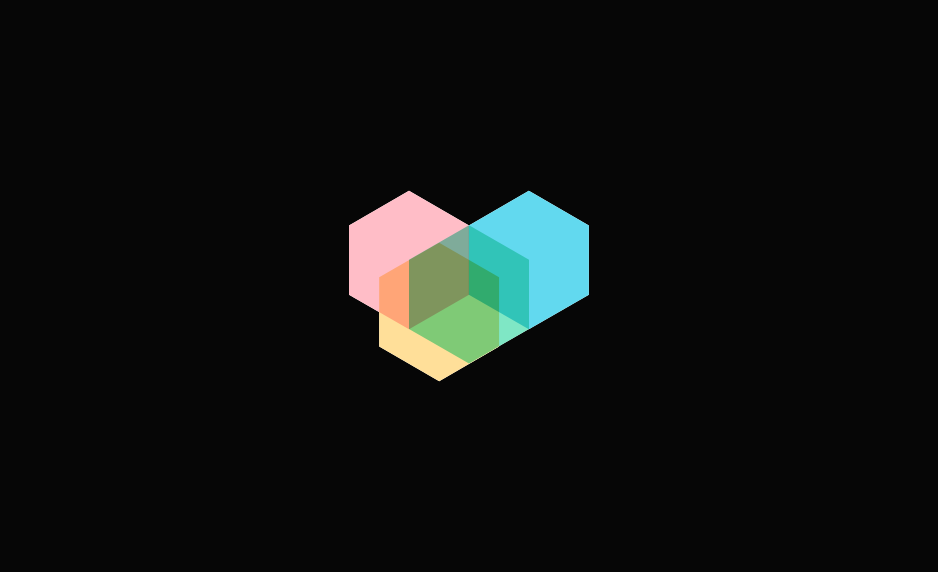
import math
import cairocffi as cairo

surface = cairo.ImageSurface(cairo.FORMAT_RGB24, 938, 572)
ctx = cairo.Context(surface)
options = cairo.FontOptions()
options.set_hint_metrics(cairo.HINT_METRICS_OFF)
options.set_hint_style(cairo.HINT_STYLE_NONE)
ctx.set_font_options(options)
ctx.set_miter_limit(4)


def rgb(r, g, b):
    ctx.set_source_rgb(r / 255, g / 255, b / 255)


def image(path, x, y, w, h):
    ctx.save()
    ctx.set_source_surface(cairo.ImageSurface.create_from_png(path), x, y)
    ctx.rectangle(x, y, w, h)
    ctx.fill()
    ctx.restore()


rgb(6, 6, 6)
ctx.paint()
image('image0.png', 349, 190, 240, 192)
surface.write_to_png('render.png')
